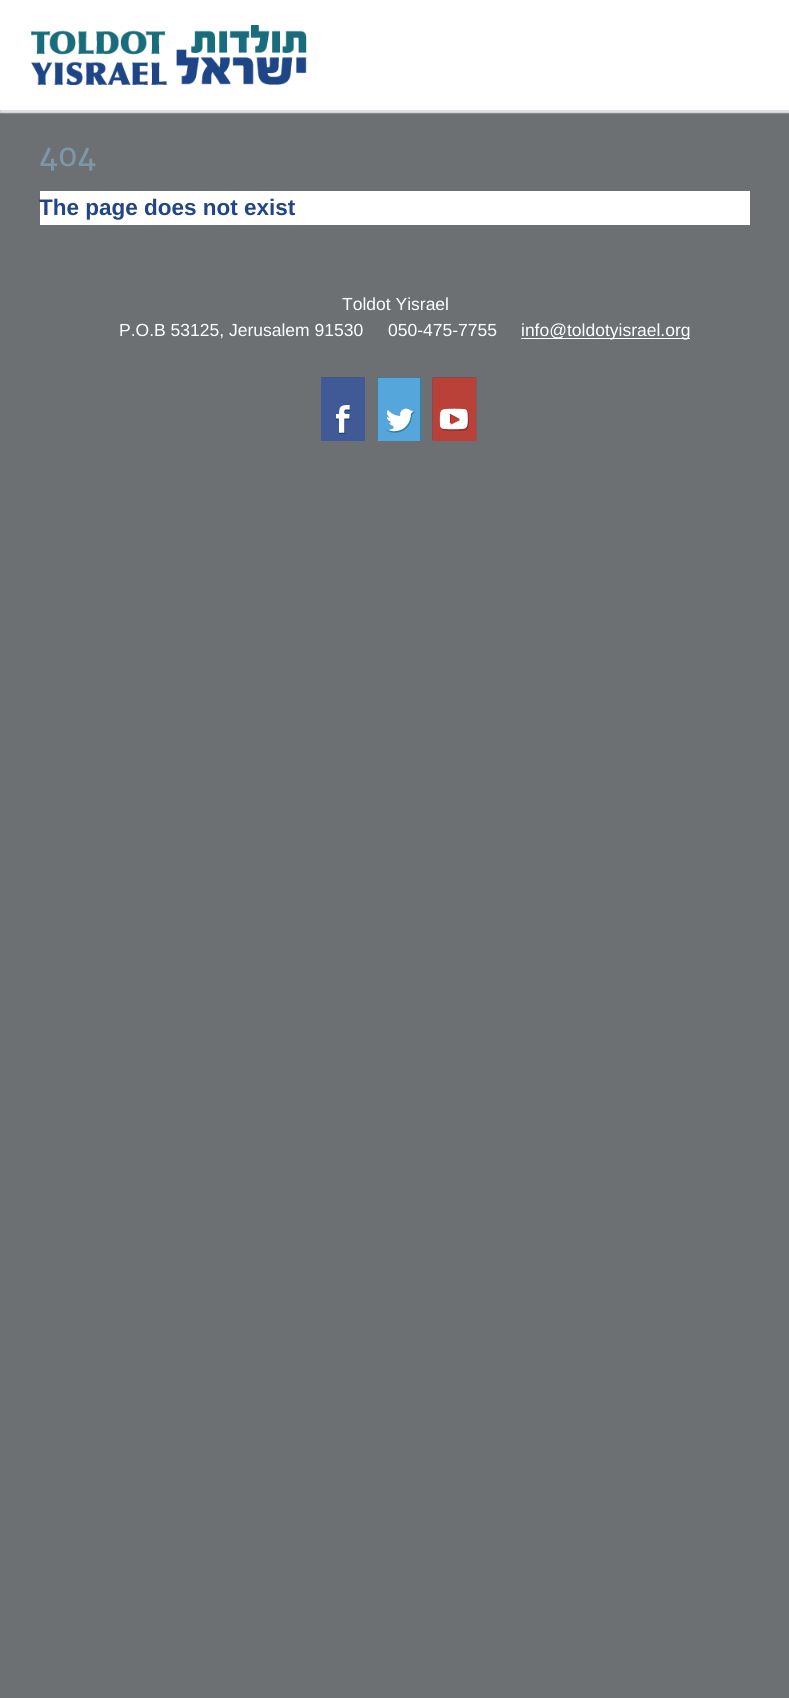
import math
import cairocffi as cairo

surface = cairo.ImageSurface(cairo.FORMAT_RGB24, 789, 1698)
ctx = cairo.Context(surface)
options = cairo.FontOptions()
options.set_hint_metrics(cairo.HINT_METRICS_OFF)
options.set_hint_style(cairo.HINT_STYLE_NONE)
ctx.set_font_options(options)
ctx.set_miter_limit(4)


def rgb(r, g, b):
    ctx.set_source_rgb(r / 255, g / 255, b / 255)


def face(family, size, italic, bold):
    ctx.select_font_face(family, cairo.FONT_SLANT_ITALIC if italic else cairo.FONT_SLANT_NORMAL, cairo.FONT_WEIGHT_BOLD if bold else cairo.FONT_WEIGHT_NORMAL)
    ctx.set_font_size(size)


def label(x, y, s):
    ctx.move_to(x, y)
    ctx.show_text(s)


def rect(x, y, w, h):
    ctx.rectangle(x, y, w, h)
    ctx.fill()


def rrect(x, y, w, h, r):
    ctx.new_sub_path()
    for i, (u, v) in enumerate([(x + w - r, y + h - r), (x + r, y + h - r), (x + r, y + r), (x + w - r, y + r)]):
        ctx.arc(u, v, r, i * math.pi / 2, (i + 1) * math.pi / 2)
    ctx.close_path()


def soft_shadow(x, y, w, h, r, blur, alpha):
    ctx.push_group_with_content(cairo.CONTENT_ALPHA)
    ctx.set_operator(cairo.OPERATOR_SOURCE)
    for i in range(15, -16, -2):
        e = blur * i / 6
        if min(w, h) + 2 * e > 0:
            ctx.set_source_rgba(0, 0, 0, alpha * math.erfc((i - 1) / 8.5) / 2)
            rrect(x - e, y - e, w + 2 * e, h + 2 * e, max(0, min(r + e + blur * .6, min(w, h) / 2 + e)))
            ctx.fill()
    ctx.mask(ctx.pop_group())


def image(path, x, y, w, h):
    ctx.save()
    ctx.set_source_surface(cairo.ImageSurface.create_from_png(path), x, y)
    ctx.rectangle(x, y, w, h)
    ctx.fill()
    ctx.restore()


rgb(108, 112, 115)
ctx.paint()
rgb(255, 255, 255)
rect(0, 0, 789, 110)
ctx.save()
ctx.rectangle(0, 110, 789, 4)
ctx.clip()
rgb(221, 224, 228)
soft_shadow(0, 3, 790, 110, 0, 0.5, 1)
ctx.restore()
image('image0.png', 31, 25, 276, 60)
face('Alef', 35, 0, 0)
rgb(125, 151, 170)
label(39, 166, '404')
rgb(255, 255, 255)
rect(40, 191, 710, 34)
face('Liberation Sans', 22.5, 0, 1)
rgb(33, 69, 134)
label(39, 215, 'The page does not exist')
face('Liberation Sans', 17.5, 0, 0)
rgb(255, 255, 255)
label(342, 310, 'Toldot Yisrael')
label(119, 336, 'P.O.B 53125, Jerusalem 91530')
label(388, 336, '050-475-7755')
rect(521, 338, 169, 1)
label(521, 336, 'info@toldotyisrael.org')
rect(336, 405, 14, 28)
image('image1.png', 321, 377, 44, 57)
ctx.save()
ctx.rectangle(321, 378, 44, 63)
ctx.clip()
rgb(64, 90, 151)
ctx.new_path()
ctx.move_to(321, 378)
ctx.line_to(321, 442)
ctx.line_to(365, 442)
ctx.line_to(365, 378)
ctx.close_path()
ctx.move_to(350, 411)
ctx.curve_to(346, 411, 345, 410, 345, 414)
ctx.line_to(350, 414)
ctx.line_to(350, 420)
ctx.line_to(345, 420)
ctx.line_to(345, 434)
ctx.line_to(339, 434)
ctx.line_to(339, 420)
ctx.line_to(336, 420)
ctx.line_to(336, 414)
ctx.line_to(339, 414)
ctx.curve_to(339, 405, 342, 405, 350, 405)
ctx.close_path()
ctx.fill()
ctx.restore()
rect(386, 408, 28, 24)
image('image2.png', 377, 377, 45, 63)
image('image3.png', 378, 378, 42, 63)
rect(439, 408, 29, 22)
image('image4.png', 432, 377, 45, 63)
image('image5.png', 433, 378, 43, 63)
surface.write_to_png('render.png')
